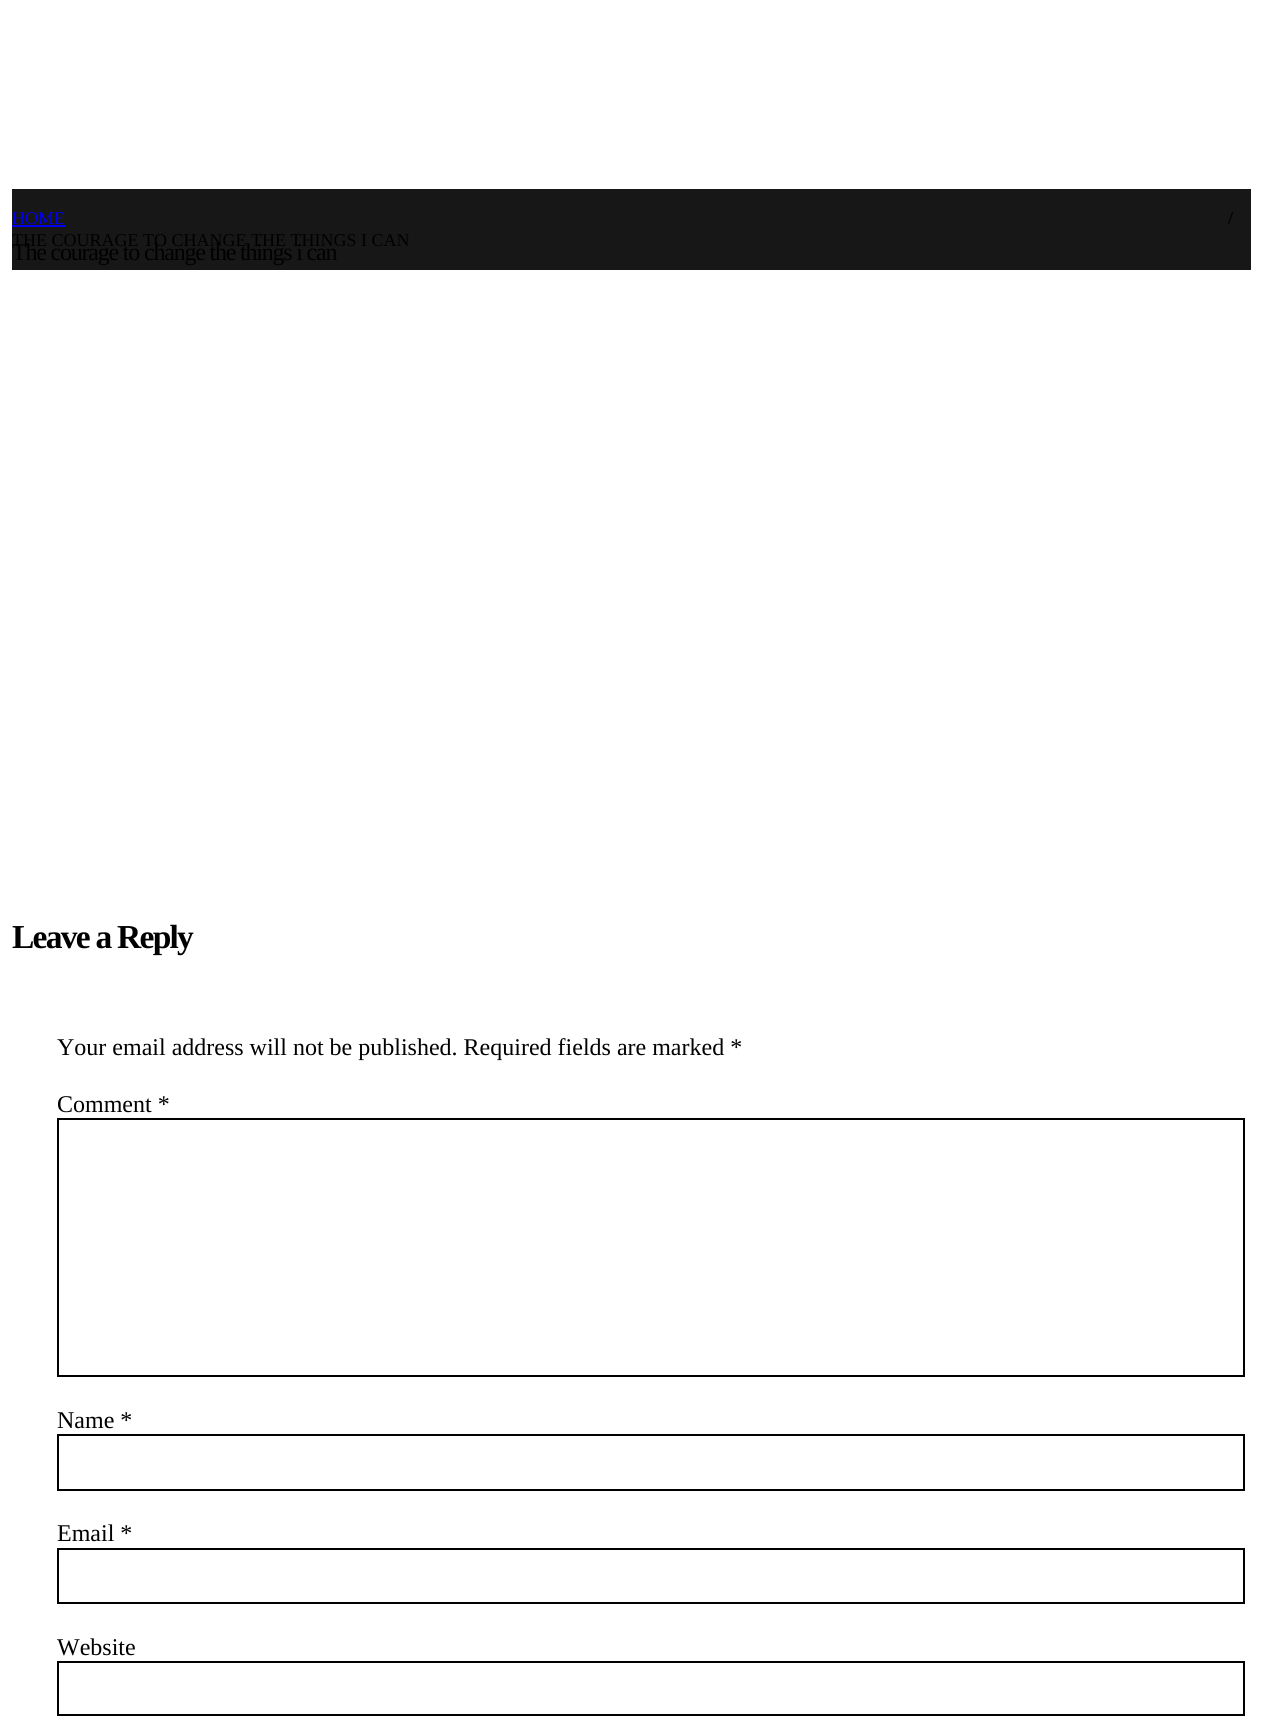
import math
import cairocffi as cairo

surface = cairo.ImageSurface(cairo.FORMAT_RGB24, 1262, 1730)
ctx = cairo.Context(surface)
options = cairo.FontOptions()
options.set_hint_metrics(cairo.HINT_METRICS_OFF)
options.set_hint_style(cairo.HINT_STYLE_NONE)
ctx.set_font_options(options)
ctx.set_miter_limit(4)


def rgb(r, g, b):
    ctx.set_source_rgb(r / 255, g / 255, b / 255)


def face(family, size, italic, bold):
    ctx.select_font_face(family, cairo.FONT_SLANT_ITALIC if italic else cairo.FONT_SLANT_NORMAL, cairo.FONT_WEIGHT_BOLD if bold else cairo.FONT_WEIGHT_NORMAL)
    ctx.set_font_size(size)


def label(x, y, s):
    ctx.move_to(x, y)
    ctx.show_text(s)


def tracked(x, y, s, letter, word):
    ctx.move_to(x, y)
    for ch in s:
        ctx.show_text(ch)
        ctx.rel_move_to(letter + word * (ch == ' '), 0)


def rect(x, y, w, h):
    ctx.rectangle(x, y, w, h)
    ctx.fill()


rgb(255, 255, 255)
ctx.paint()
rgb(23, 23, 23)
rect(12, 189, 1239, 81)
face('Liberation Serif', 18, 0, 0)
rgb(0, 0, 238)
label(12, 224, 'HOME')
rect(12, 225, 53, 2)
face('Liberation Serif', 18, 0, 1)
rgb(0, 0, 0)
label(1228, 224, '/')
face('Liberation Serif', 18, 0, 0)
label(12, 246, 'THE COURAGE TO CHANGE THE THINGS I CAN')
face('Liberation Serif', 24, 0, 0)
tracked(12, 260, 'The courage to change the things i can', -1.2, 0)
face('Liberation Serif', 33.5, 0, 1)
tracked(12, 948, 'Leave a Reply', -1.75, 0)
face('Liberation Serif', 24, 0, 0)
label(57, 1055, 'Your email address will not be published. Required fields are marked *')
label(57, 1112, 'Comment *')
ctx.rectangle(58, 1119, 1186, 257)
ctx.stroke()
label(57, 1428, 'Name *')
ctx.rectangle(58, 1435, 1186, 55)
ctx.stroke()
label(57, 1541, 'Email *')
ctx.rectangle(58, 1549, 1186, 54)
ctx.stroke()
label(57, 1655, 'Website')
ctx.rectangle(58, 1662, 1186, 53)
ctx.stroke()
surface.write_to_png('render.png')
